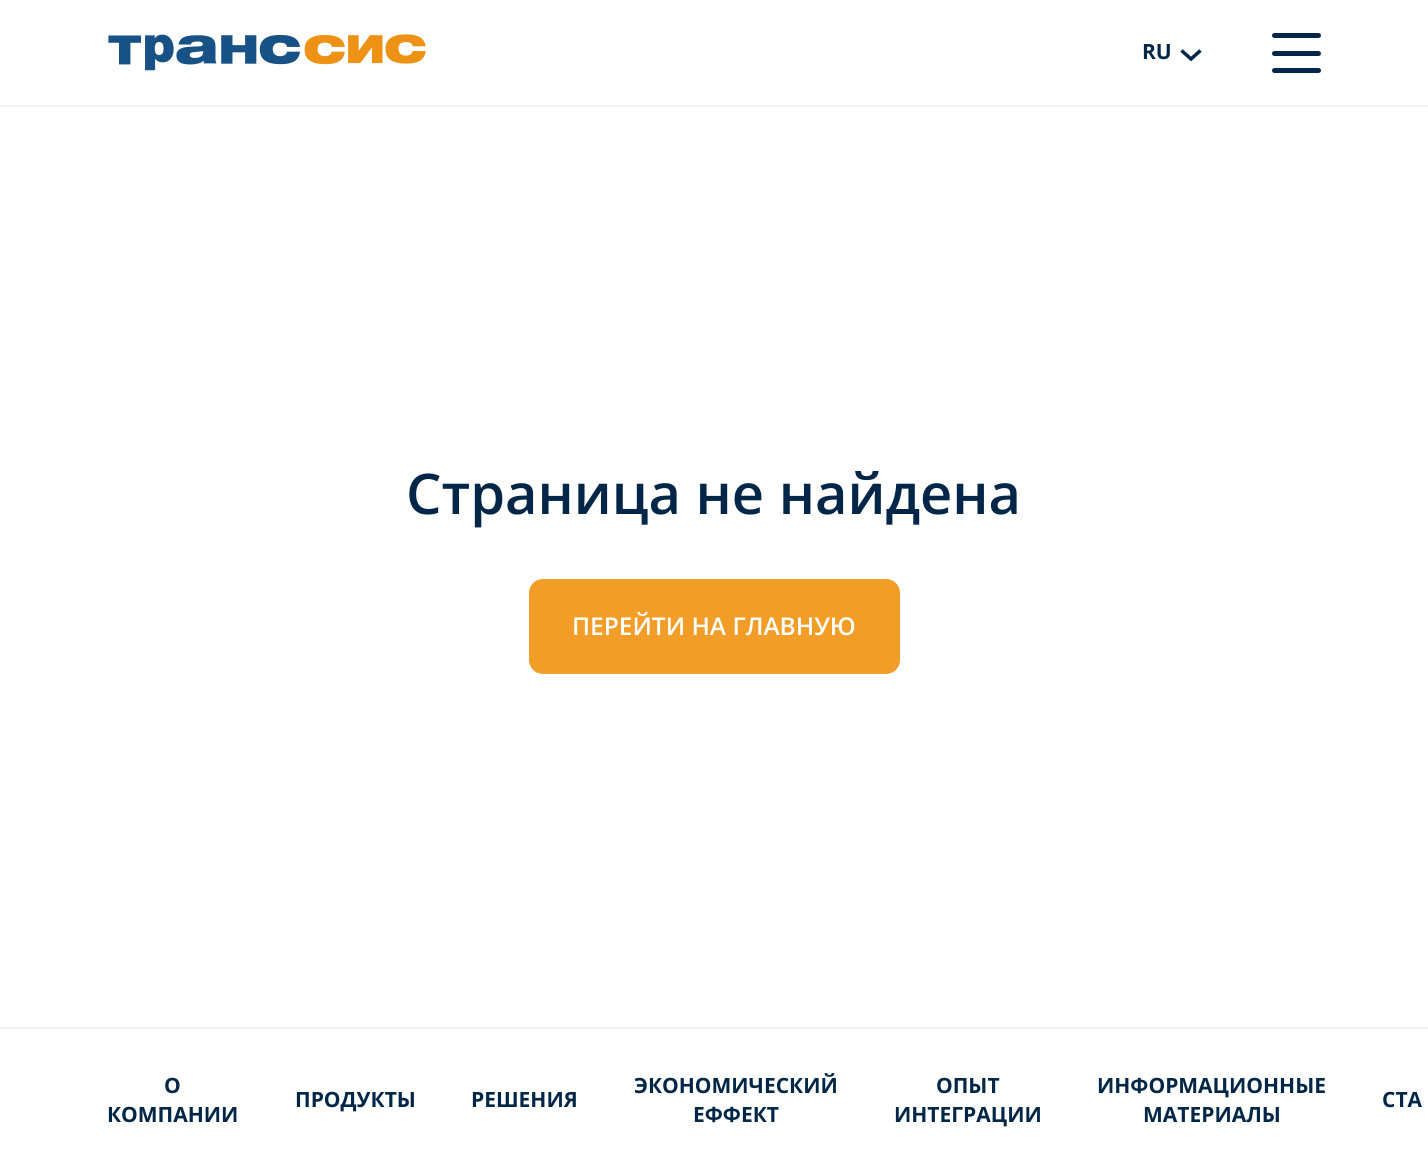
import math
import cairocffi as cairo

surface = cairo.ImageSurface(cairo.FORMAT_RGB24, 1428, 1172)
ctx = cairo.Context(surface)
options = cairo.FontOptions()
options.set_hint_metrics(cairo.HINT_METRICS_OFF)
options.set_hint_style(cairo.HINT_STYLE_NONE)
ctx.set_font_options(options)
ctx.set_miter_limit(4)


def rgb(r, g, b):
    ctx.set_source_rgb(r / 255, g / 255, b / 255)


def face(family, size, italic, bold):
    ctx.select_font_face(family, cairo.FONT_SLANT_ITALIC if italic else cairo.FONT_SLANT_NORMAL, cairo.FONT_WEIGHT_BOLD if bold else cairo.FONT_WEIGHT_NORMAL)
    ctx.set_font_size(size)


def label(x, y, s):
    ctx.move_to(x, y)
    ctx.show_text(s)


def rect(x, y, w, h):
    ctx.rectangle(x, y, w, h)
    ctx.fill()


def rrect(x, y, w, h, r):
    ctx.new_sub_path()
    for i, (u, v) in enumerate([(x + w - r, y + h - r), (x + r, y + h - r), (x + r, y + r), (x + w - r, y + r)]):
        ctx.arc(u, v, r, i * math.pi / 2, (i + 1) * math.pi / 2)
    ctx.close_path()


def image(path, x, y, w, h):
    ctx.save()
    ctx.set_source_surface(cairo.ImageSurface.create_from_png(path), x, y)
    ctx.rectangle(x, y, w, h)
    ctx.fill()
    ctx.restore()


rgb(255, 255, 255)
ctx.paint()
rgb(242, 242, 242)
rect(0, 105, 1428, 2)
image('image0.png', 108, 34, 318, 37)
face('Open Sans', 21, 0, 1)
rgb(1, 38, 71)
label(1142, 59, 'RU')
ctx.new_path()
ctx.move_to(1181.5, 50.5)
ctx.line_to(1191, 59)
ctx.line_to(1200.5, 50.5)
ctx.set_line_width(3.5)
ctx.stroke()
rrect(1272, 68, 49, 5, 2.5)
ctx.fill()
rrect(1272, 33, 49, 5, 2.5)
ctx.fill()
rrect(1272, 51, 49, 5, 2.5)
ctx.fill()
face('Open Sans SemiBold', 56, 0, 0)
label(406, 514, 'Страница не найдена')
rgb(242, 157, 39)
rrect(529, 579, 371, 95, 14)
ctx.fill()
face('Open Sans SemiBold', 24.5, 0, 0)
rgb(255, 255, 255)
label(572, 635, 'ПЕРЕЙТИ НА ГЛАВНУЮ')
rgb(242, 242, 242)
rect(0, 1027, 1428, 2)
face('Open Sans', 21, 0, 1)
rgb(1, 38, 71)
label(164, 1093, 'О')
label(107, 1122, 'КОМПАНИИ')
label(295, 1107, 'ПРОДУКТЫ')
label(471, 1107, 'РЕШЕНИЯ')
label(634, 1093, 'ЭКОНОМИЧЕСКИЙ')
label(693, 1122, 'ЕФФЕКТ')
label(936, 1093, 'ОПЫТ')
label(894, 1122, 'ИНТЕГРАЦИИ')
label(1097, 1093, 'ИНФОРМАЦИОННЫЕ')
label(1143, 1122, 'МАТЕРИАЛЫ')
label(1382, 1107, 'СТА')
surface.write_to_png('render.png')
